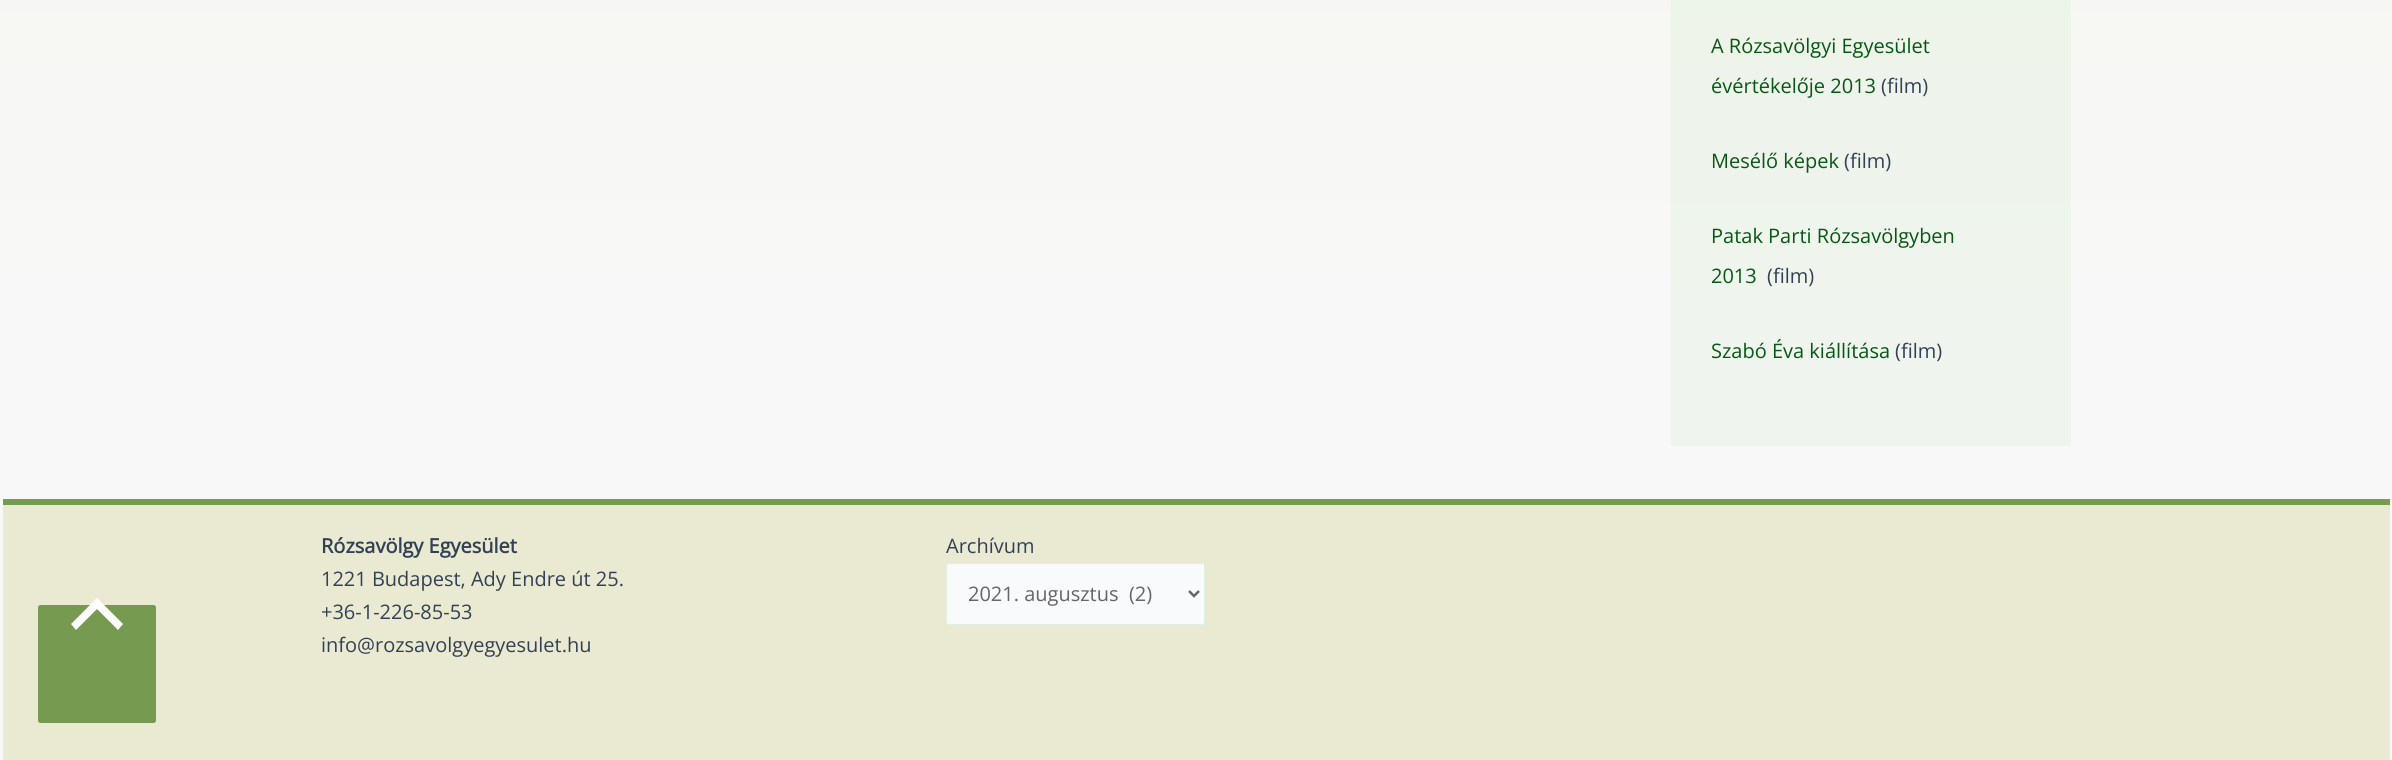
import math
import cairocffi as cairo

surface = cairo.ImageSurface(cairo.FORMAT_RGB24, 2392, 760)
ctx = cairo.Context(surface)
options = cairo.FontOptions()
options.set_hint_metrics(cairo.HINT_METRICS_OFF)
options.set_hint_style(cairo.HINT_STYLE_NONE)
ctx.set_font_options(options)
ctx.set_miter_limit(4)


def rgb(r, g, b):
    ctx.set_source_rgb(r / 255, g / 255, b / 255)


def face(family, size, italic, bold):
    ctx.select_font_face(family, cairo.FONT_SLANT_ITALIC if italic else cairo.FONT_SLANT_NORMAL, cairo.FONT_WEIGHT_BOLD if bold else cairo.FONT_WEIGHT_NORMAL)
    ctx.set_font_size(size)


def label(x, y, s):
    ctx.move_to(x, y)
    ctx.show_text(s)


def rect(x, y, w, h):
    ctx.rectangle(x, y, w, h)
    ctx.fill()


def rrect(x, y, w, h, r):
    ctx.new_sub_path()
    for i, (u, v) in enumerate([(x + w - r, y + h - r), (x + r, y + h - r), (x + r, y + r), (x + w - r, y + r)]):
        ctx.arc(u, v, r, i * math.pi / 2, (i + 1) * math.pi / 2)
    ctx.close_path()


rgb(255, 255, 255)
ctx.paint()
gradient = cairo.LinearGradient(1196, -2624, 1196, 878)
gradient.add_color_stop_rgba(0.08, 0.918, 0.918, 0.824, 1)
gradient.add_color_stop_rgba(0.84, 0.973, 0.973, 0.973, 1)
ctx.set_source(gradient)
rect(0, 0, 2392, 760)
gradient = cairo.LinearGradient(1196, -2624, 1196, 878)
gradient.add_color_stop_rgba(0.08, 0.886, 0.91, 0.792, 1)
gradient.add_color_stop_rgba(0.84, 0.937, 0.961, 0.933, 1)
ctx.set_source(gradient)
rect(1671, 0, 400, 446)
rgb(234, 234, 210)
rect(3, 505, 2387, 216)
rect(3, 721, 2387, 39)
rgb(118, 154, 80)
rrect(38, 605, 118, 118, 2.5)
ctx.fill()
rgb(255, 255, 255)
ctx.new_path()
ctx.move_to(123, 624)
ctx.line_to(97, 598)
ctx.line_to(71, 624)
ctx.line_to(76, 630)
ctx.line_to(97, 609)
ctx.line_to(118, 630)
ctx.close_path()
ctx.fill()
face('Open Sans', 20, 0, 0)
rgb(9, 87, 22)
label(1711, 53, 'A Rózsavölgyi Egyesület')
label(1711, 93, 'évértékelője 2013')
rgb(51, 65, 85)
label(1881, 93, '(film)')
rgb(9, 87, 22)
label(1711, 168, 'Mesélő képek')
rgb(51, 65, 85)
label(1844, 168, '(film)')
rgb(9, 87, 22)
label(1711, 243, 'Patak Parti Rózsavölgyben')
label(1711, 283, '2013')
rgb(51, 65, 85)
label(1767, 283, '(film)')
rgb(9, 87, 22)
label(1711, 358, 'Szabó Éva kiállítása')
rgb(51, 65, 85)
label(1895, 358, '(film)')
rgb(118, 154, 80)
rect(3, 499, 2387, 6)
face('Open Sans', 20, 0, 1)
rgb(51, 65, 85)
label(321, 553, 'Rózsavölgy Egyesület')
face('Open Sans', 20, 0, 0)
label(321, 586, '1221 Budapest, Ady Endre út 25.')
label(321, 619, '+36-1-226-85-53')
label(321, 652, 'info@rozsavolgyegyesulet.hu')
label(946, 553, 'Archívum')
rgb(249, 250, 251)
rrect(946.5, 563.5, 258, 61, 2)
ctx.fill_preserve()
rgb(225, 240, 225)
ctx.set_line_width(1)
ctx.stroke()
ctx.new_path()
ctx.move_to(1189, 591)
ctx.line_to(1194, 596)
ctx.line_to(1199, 591)
rgb(102, 102, 102)
ctx.set_line_width(2.5)
ctx.stroke()
label(968, 601, '2021. augusztus  (2)')
surface.write_to_png('render.png')
